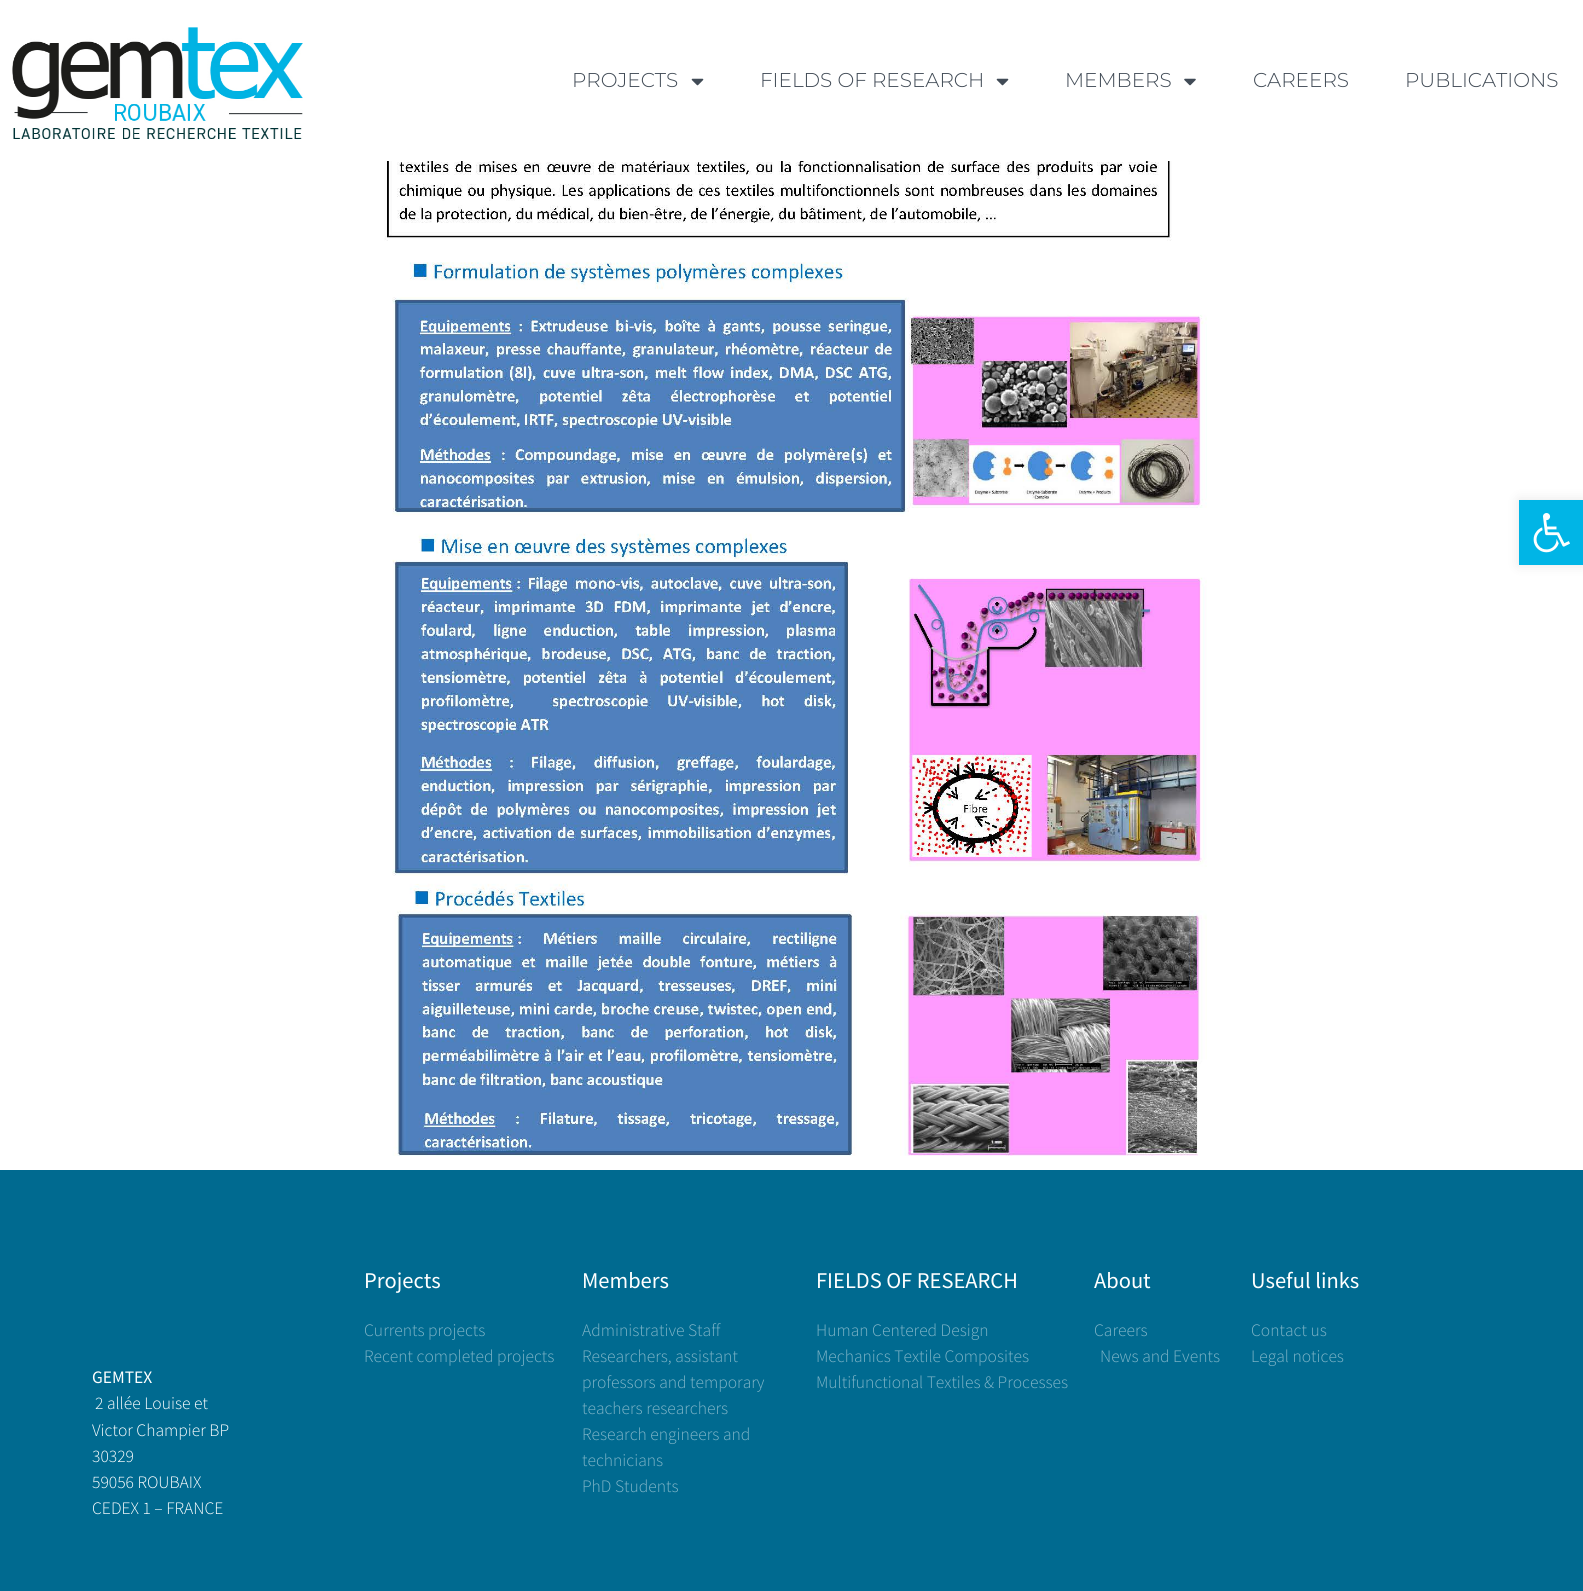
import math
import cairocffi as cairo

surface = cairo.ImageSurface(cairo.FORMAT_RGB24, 1583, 1591)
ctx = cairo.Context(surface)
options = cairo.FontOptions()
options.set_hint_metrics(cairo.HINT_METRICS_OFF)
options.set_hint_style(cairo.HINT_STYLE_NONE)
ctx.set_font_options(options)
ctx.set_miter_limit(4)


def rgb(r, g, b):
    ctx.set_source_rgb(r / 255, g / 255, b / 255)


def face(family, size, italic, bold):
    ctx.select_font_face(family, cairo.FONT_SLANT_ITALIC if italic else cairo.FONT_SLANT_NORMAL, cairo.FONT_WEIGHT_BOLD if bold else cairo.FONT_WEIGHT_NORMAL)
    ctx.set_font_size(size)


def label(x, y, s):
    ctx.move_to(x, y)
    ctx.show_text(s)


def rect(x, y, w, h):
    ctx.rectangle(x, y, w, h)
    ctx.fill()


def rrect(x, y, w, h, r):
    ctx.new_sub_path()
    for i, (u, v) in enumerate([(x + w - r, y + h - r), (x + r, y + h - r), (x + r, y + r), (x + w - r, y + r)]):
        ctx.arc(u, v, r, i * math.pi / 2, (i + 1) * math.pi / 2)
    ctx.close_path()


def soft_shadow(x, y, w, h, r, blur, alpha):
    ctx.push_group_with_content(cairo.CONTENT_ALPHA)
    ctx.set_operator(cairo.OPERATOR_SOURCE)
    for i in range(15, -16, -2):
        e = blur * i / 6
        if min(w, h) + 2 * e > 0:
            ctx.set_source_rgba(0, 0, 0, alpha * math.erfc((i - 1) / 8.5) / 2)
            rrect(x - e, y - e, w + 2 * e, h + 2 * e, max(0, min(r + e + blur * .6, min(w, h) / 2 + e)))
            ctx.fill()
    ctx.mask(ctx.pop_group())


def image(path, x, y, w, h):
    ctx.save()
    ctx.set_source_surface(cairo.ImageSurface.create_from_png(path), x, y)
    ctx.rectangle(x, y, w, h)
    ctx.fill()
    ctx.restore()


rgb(255, 255, 255)
ctx.paint()
image('image0.png', 12, 27, 291, 112)
face('Montserrat Light', 20, 0, 0)
rgb(65, 75, 86)
label(572, 87, 'PROJECTS')
image('image1.png', 691, 78, 13, 8)
label(760, 87, 'FIELDS OF RESEARCH')
image('image1.png', 996, 78, 13, 8)
label(1065, 87, 'MEMBERS')
image('image2.png', 1184, 78, 12, 8)
label(1253, 87, 'CAREERS')
label(1405, 87, 'PUBLICATIONS')
image('image3.png', 384, 161, 823, 995)
rgb(0, 0, 0)
soft_shadow(1519, 500, 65, 65, 0, 6, 0.1)
rgb(0, 181, 230)
rect(1519, 500, 64, 65)
image('image4.png', 1533, 513, 37, 40)
rgb(0, 106, 144)
rect(0, 1170, 1583, 421)
face('Source Sans Pro', 22.5, 0, 0)
rgb(255, 255, 255)
label(364, 1288, 'Projects')
face('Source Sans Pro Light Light', 17.5, 0, 0)
rgb(128, 181, 200)
label(364, 1336, 'Currents projects')
label(364, 1362, 'Recent completed projects')
face('Source Sans Pro', 22.5, 0, 0)
rgb(255, 255, 255)
label(582, 1288, 'Members')
face('Source Sans Pro Light Light', 17.5, 0, 0)
rgb(128, 181, 200)
label(582, 1336, 'Administrative Staff')
label(582, 1362, 'Researchers, assistant')
label(582, 1388, 'professors and temporary')
label(582, 1414, 'teachers researchers')
label(582, 1440, 'Research engineers and')
label(582, 1466, 'technicians')
label(582, 1492, 'PhD Students')
face('Source Sans Pro', 22.5, 0, 0)
rgb(255, 255, 255)
label(816, 1288, 'FIELDS OF RESEARCH')
face('Source Sans Pro Light Light', 17.5, 0, 0)
rgb(128, 181, 200)
label(816, 1336, 'Human Centered Design')
label(816, 1362, 'Mechanics Textile Composites')
label(816, 1388, 'Multifunctional Textiles & Processes')
face('Source Sans Pro', 22.5, 0, 0)
rgb(255, 255, 255)
label(1094, 1288, 'About')
face('Source Sans Pro Light Light', 17.5, 0, 0)
rgb(128, 181, 200)
label(1094, 1336, 'Careers')
label(1100, 1362, 'News and Events')
face('Source Sans Pro', 22.5, 0, 0)
rgb(255, 255, 255)
label(1251, 1288, 'Useful links')
face('Source Sans Pro Light Light', 17.5, 0, 0)
rgb(128, 181, 200)
label(1251, 1336, 'Contact us')
label(1251, 1362, 'Legal notices')
face('Source Sans Pro', 17.5, 0, 0)
rgb(255, 255, 255)
label(92, 1383, 'GEMTEX')
face('Source Sans Pro Light Light', 17.5, 0, 0)
label(95, 1409, '2 allée Louise et')
label(92, 1436, 'Victor Champier BP')
label(92, 1462, '30329')
label(92, 1488, '59056 ROUBAIX')
label(92, 1514, 'CEDEX 1 – FRANCE')
surface.write_to_png('render.png')
